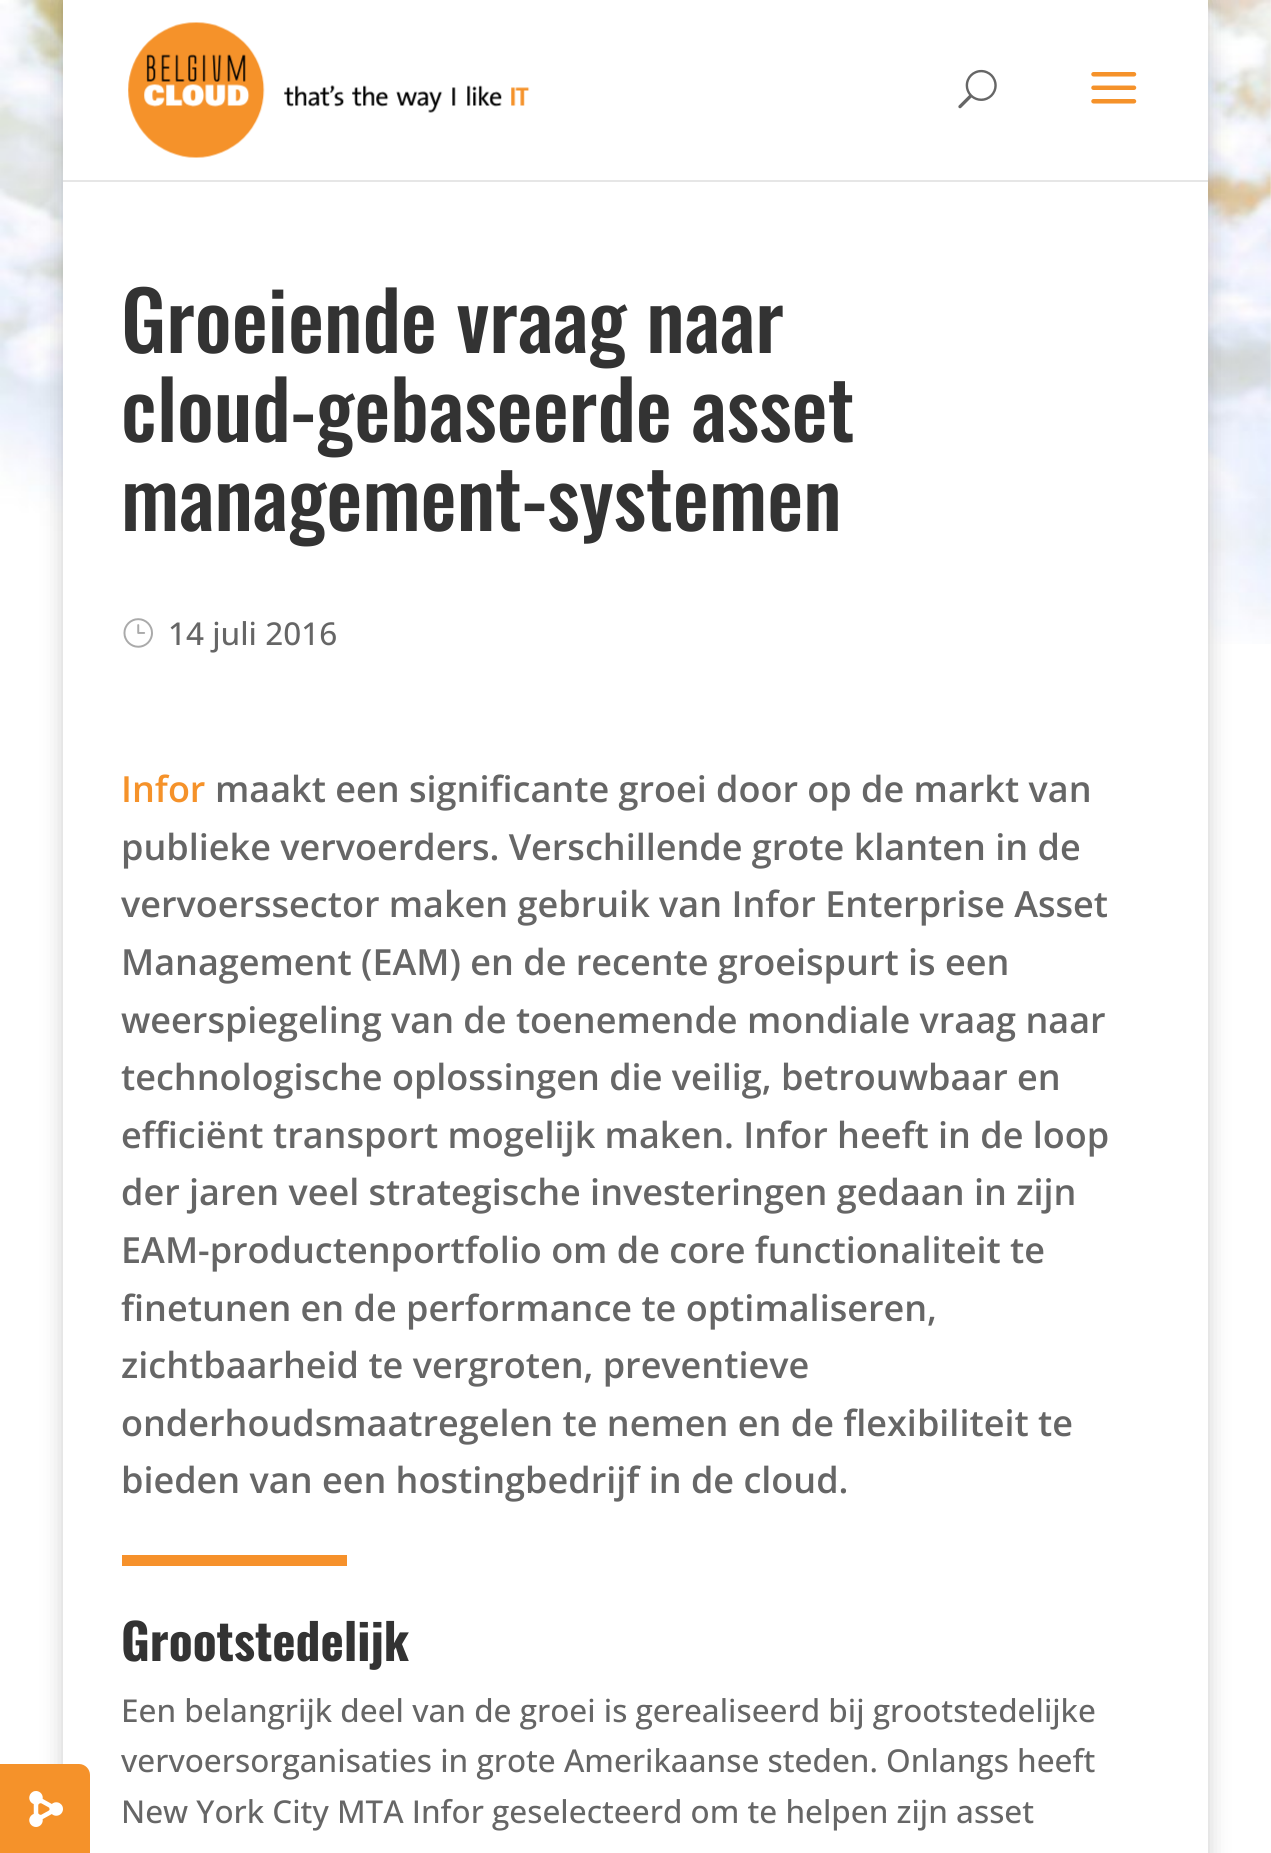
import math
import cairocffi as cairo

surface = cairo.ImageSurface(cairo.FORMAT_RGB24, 1271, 1853)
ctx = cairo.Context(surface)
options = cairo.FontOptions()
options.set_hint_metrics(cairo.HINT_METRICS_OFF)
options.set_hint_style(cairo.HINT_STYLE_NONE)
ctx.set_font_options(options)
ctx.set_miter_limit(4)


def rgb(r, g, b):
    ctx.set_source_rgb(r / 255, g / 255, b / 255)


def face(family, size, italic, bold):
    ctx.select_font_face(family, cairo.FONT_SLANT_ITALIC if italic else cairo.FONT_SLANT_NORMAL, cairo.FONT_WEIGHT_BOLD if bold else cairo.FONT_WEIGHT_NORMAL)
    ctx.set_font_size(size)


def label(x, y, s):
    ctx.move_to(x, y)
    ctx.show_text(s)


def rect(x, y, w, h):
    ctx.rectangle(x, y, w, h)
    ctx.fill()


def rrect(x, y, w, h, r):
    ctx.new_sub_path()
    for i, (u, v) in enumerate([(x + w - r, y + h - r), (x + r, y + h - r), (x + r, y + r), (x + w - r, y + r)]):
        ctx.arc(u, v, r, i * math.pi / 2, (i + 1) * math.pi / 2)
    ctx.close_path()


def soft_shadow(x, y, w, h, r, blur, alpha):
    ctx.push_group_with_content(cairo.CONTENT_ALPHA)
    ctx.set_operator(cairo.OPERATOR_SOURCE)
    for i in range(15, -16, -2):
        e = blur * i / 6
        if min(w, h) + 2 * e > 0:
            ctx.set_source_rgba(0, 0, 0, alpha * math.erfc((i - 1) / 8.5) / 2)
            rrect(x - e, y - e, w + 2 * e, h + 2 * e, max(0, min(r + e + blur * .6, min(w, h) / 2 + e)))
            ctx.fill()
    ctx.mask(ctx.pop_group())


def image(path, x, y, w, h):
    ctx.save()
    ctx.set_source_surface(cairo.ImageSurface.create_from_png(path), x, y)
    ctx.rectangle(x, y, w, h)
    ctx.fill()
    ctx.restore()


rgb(255, 255, 255)
ctx.paint()
image('image0.png', 0, 0, 1271, 644)
rgb(0, 0, 0)
soft_shadow(63, 0, 1145, 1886, 0, 11, 0.2)
rgb(255, 255, 255)
rect(63, 182, 1145, 1671)
rgb(245, 146, 42)
ctx.new_path()
ctx.move_to(0, 1764)
ctx.line_to(79, 1764)
ctx.curve_to(85, 1764, 90, 1769, 90, 1775)
ctx.line_to(90, 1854)
ctx.line_to(0, 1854)
ctx.close_path()
ctx.fill()
image('image1.png', 29, 1791, 34, 36)
rgb(230, 230, 230)
rect(63, 180, 1145, 2)
rgb(255, 255, 255)
rect(63, 0, 1145, 180)
image('image2.png', 128, 22, 402, 136)
image('image3.png', 958, 69, 39, 40)
image('image4.png', 1091, 72, 46, 32)
face('Oswald Medium', 81, 0, 0)
rgb(51, 51, 51)
label(121, 353, 'Groeiende vraag naar')
label(121, 442, 'cloud-gebaseerde asset')
label(121, 531, 'management-systemen')
image('image5.png', 123, 618, 30, 30)
face('Open Sans Medium', 31.5, 0, 0)
rgb(102, 102, 102)
label(168, 645, '14 juli 2016')
face('Open Sans SemiBold', 36, 0, 0)
rgb(245, 146, 42)
label(121, 802, 'Infor')
rgb(102, 102, 102)
label(215, 802, 'maakt een significante groei door op de markt van')
label(121, 860, 'publieke vervoerders. Verschillende grote klanten in de')
label(121, 917, 'vervoerssector maken gebruik van Infor Enterprise Asset')
label(121, 975, 'Management (EAM) en de recente groeispurt is een')
label(121, 1033, 'weerspiegeling van de toenemende mondiale vraag naar')
label(121, 1090, 'technologische oplossingen die veilig, betrouwbaar en')
label(121, 1148, 'efficiënt transport mogelijk maken. Infor heeft in de loop')
label(121, 1205, 'der jaren veel strategische investeringen gedaan in zijn')
label(121, 1263, 'EAM-productenportfolio om de core functionaliteit te')
label(121, 1321, 'finetunen en de performance te optimaliseren,')
label(121, 1378, 'zichtbaarheid te vergroten, preventieve')
label(121, 1436, 'onderhoudsmaatregelen te nemen en de flexibiliteit te')
label(121, 1493, 'bieden van een hostingbedrijf in de cloud.')
rgb(246, 145, 43)
rect(122, 1555, 225, 11)
face('Oswald', 49.5, 0, 1)
rgb(51, 51, 51)
label(121, 1661, 'Grootstedelijk')
face('Open Sans Medium', 31.5, 0, 0)
rgb(102, 102, 102)
label(121, 1722, 'Een belangrijk deel van de groei is gerealiseerd bij grootstedelijke')
label(121, 1772, 'vervoersorganisaties in grote Amerikaanse steden. Onlangs heeft')
label(121, 1823, 'New York City MTA Infor geselecteerd om te helpen zijn asset')
surface.write_to_png('render.png')
